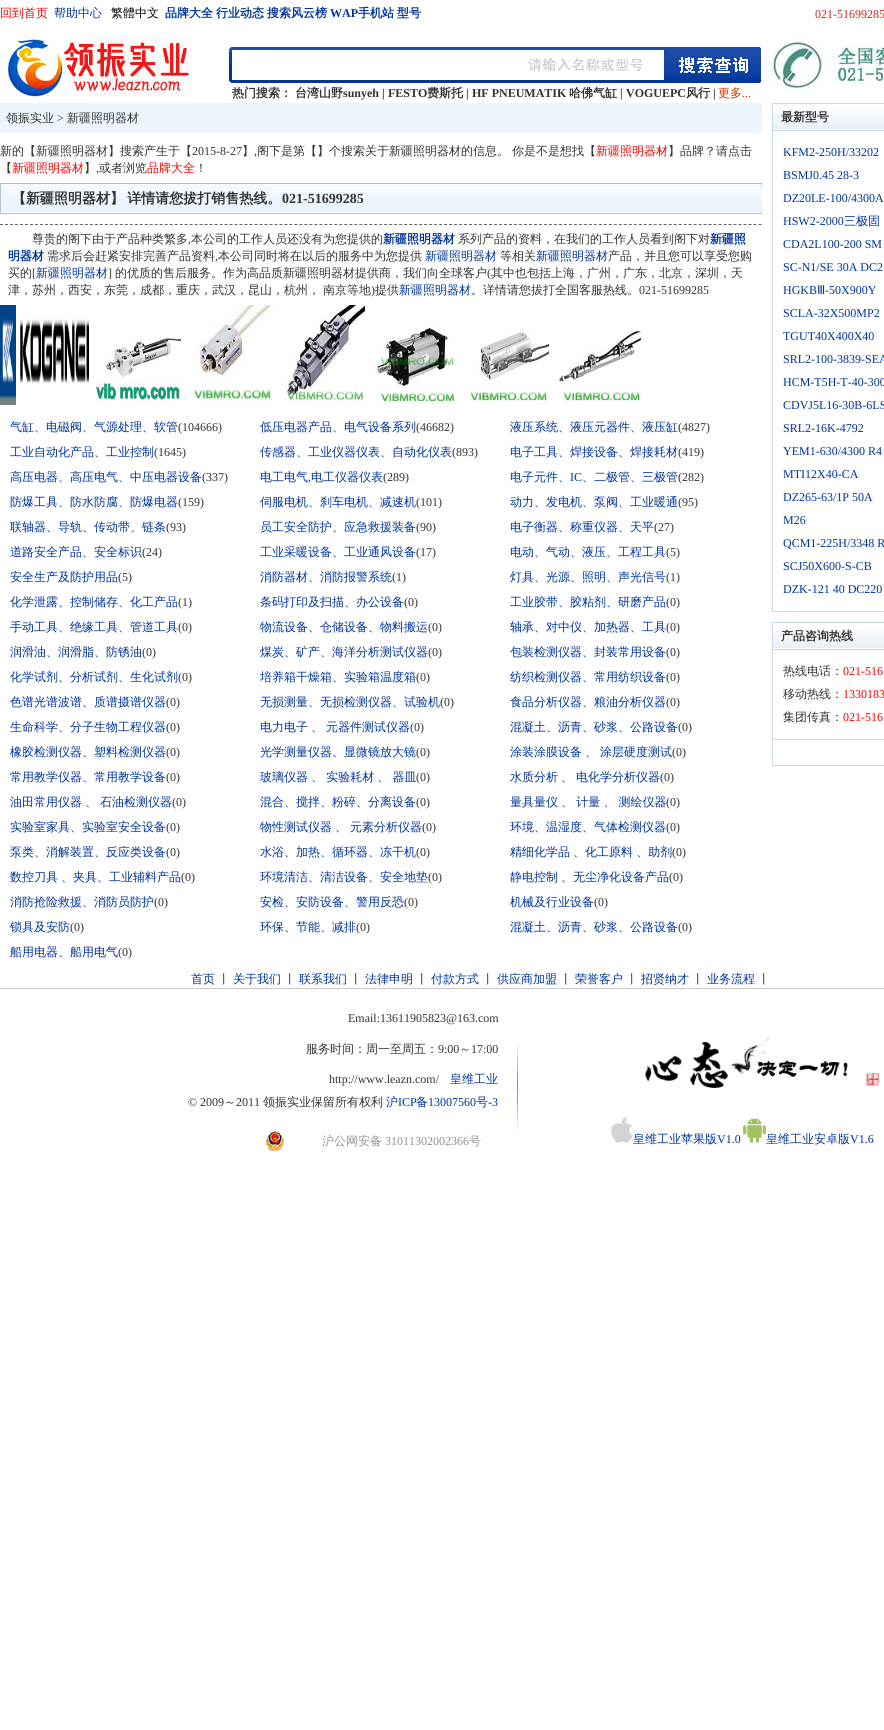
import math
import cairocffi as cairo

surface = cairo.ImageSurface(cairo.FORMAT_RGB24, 884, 1730)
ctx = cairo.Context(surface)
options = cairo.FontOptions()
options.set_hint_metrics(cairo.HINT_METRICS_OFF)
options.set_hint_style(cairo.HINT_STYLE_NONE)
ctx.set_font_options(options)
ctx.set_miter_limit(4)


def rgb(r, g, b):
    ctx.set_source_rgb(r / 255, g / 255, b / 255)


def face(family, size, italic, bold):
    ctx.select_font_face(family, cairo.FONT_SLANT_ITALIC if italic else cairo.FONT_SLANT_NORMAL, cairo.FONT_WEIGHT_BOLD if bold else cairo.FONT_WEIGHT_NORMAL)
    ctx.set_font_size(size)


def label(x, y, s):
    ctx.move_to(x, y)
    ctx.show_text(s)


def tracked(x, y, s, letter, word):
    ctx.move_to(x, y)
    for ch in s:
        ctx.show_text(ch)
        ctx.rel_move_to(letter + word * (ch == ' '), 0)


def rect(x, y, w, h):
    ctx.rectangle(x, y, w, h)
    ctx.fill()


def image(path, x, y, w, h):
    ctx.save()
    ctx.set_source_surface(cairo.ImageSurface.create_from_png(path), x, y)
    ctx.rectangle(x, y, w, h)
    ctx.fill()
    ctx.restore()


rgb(255, 255, 255)
ctx.paint()
face('WenQuanYi Zen Hei Medium', 12, 0, 0)
rgb(255, 0, 0)
label(0, 17, '回到首页')
rgb(0, 51, 153)
label(54, 17, '帮助中心')
rgb(0, 0, 0)
label(111, 17, '繁體中文')
face('WenQuanYi Zen Hei', 12, 0, 1)
rgb(0, 51, 153)
label(165, 17, '品牌大全')
label(216, 17, '行业动态')
label(267, 17, '搜索风云榜')
face('Liberation Serif', 12, 0, 1)
label(330, 17, 'WAP')
face('WenQuanYi Zen Hei', 12, 0, 1)
label(358, 17, '手机站')
label(397, 17, '型号')
face('Liberation Serif', 12, 0, 0)
rgb(204, 40, 41)
label(815, 18, '021-51699285')
image('image0.png', 8, 37, 184, 60)
image('image1.png', 229, 47, 438, 36)
image('image2.png', 667, 47, 94, 36)
face('WenQuanYi Zen Hei', 12, 0, 1)
rgb(51, 51, 51)
label(232, 97, '热门搜索：')
label(295, 97, '台湾山野')
face('Liberation Serif', 12, 0, 1)
label(343, 97, 'sunyeh')
label(382, 97, '|')
label(388, 97, 'FESTO')
face('WenQuanYi Zen Hei', 12, 0, 1)
label(427, 97, '费斯托')
face('Liberation Serif', 12, 0, 1)
label(466, 97, '|')
label(472, 97, 'HF PNEUMATIK')
face('WenQuanYi Zen Hei', 12, 0, 1)
label(569, 97, '哈佛气缸')
face('Liberation Serif', 12, 0, 1)
label(620, 97, '|')
label(626, 97, 'VOGUEPC')
face('WenQuanYi Zen Hei', 12, 0, 1)
label(686, 97, '风行')
face('Liberation Serif', 12, 0, 1)
label(713, 97, '|')
face('WenQuanYi Zen Hei Medium', 12, 0, 0)
rgb(204, 51, 0)
label(718, 97, '更多')
face('Liberation Serif', 12, 0, 0)
label(742, 97, '...')
image('image3.png', 770, 37, 114, 55)
rgb(237, 246, 255)
rect(0, 103, 762, 30)
face('WenQuanYi Zen Hei Medium', 12, 0, 0)
rgb(51, 51, 51)
label(6, 122, '领振实业')
face('Liberation Serif', 12, 0, 0)
label(57, 122, '>')
face('WenQuanYi Zen Hei Medium', 12, 0, 0)
label(67, 122, '新疆照明器材')
label(0, 155, '新的【新疆照明器材】搜索产生于【')
face('Liberation Serif', 12, 0, 0)
label(192, 155, '2015-8-27')
face('WenQuanYi Zen Hei Medium', 12, 0, 0)
label(242, 155, '】')
face('Liberation Serif', 12, 0, 0)
label(254, 155, ',')
face('WenQuanYi Zen Hei Medium', 12, 0, 0)
label(257, 155, '阁下是第【】个搜索关于新疆照明器材的信息。')
label(512, 155, '你是不是想找【')
rgb(255, 0, 0)
label(596, 155, '新疆照明器材')
rgb(51, 51, 51)
label(668, 155, '】品牌？请点击')
label(0, 172, '【')
rgb(255, 0, 0)
label(12, 172, '新疆照明器材')
rgb(51, 51, 51)
label(84, 172, '】')
face('Liberation Serif', 12, 0, 0)
label(96, 172, ',')
face('WenQuanYi Zen Hei Medium', 12, 0, 0)
label(99, 172, '或者浏览')
rgb(255, 0, 0)
label(147, 172, '品牌大全')
rgb(51, 51, 51)
label(195, 172, '！')
ctx.rectangle(0.5, 183.5, 761, 30)
rgb(169, 193, 221)
ctx.set_line_width(1)
ctx.stroke()
image('image4.png', 2, 185, 760, 27)
face('WenQuanYi Zen Hei', 14, 0, 1)
rgb(51, 51, 51)
tracked(12, 203, '【新疆照明器材】 详情请您拔打销售热线。', 0, -1)
face('Liberation Serif', 14, 0, 1)
label(282, 203, '021-51699285')
ctx.new_path()
ctx.move_to(0, 224.5)
ctx.line_to(762, 224.5)
rgb(102, 102, 102)
ctx.set_dash([3, 1.99])
ctx.stroke()
face('WenQuanYi Zen Hei Medium', 12, 0, 0)
rgb(51, 51, 51)
label(32, 243, '尊贵的阁下由于产品种类繁多')
face('Liberation Serif', 12, 0, 0)
label(188, 243, ',')
face('WenQuanYi Zen Hei Medium', 12, 0, 0)
label(191, 243, '本公司的工作人员还没有为您提供的')
face('WenQuanYi Zen Hei', 12, 0, 1)
rgb(0, 51, 153)
label(383, 243, '新疆照明器材')
face('WenQuanYi Zen Hei Medium', 12, 0, 0)
rgb(51, 51, 51)
label(458, 243, '系列产品的资料，在我们的工作人员看到阁下对')
face('WenQuanYi Zen Hei', 12, 0, 1)
rgb(0, 51, 153)
label(710, 243, '新疆照')
label(8, 260, '明器材')
face('WenQuanYi Zen Hei Medium', 12, 0, 0)
rgb(51, 51, 51)
label(47, 260, '需求后会赶紧安排完善产品资料')
face('Liberation Serif', 12, 0, 0)
label(215, 260, ',')
face('WenQuanYi Zen Hei Medium', 12, 0, 0)
label(218, 260, '本公司同时将在以后的服务中为您提供')
rgb(0, 51, 153)
label(425, 260, '新疆照明器材')
rgb(51, 51, 51)
label(500, 260, '等相关')
rgb(0, 51, 153)
label(536, 260, '新疆照明器材')
rgb(51, 51, 51)
label(608, 260, '产品，并且您可以享受您购')
label(8, 277, '买的')
face('Liberation Serif', 12, 0, 0)
label(32, 277, '[')
face('WenQuanYi Zen Hei Medium', 12, 0, 0)
rgb(0, 51, 153)
label(36, 277, '新疆照明器材')
face('Liberation Serif', 12, 0, 0)
rgb(51, 51, 51)
label(108, 277, ']')
face('WenQuanYi Zen Hei Medium', 12, 0, 0)
label(115, 277, '的优质的售后服务。作为高品质新疆照明器材提供商，我们向全球客户')
face('Liberation Serif', 12, 0, 0)
label(487, 277, '(')
face('WenQuanYi Zen Hei Medium', 12, 0, 0)
label(491, 277, '其中也包括上海，广州，广东，北京，深圳，天')
tracked(8, 294, '津，苏州，西安，东莞，成都，重庆，武汉，昆山，杭州， 南京等地', 0, -0.5)
face('Liberation Serif', 12, 0, 0)
label(371, 294, ')')
face('WenQuanYi Zen Hei Medium', 12, 0, 0)
label(375, 294, '提供')
rgb(0, 51, 153)
label(399, 294, '新疆照明器材')
rgb(51, 51, 51)
label(471, 294, '。详情请您拔打全国客服热线。')
face('Liberation Serif', 12, 0, 0)
label(639, 294, '021-51699285')
image('image5.png', 0, 305, 89, 100)
image('image6.png', 96, 337, 85, 64)
image('image7.png', 193, 305, 80, 96)
image('image8.png', 285, 305, 80, 96)
image('image9.png', 373, 324, 82, 77)
image('image10.png', 470, 331, 79, 70)
image('image11.png', 557, 331, 84, 70)
face('WenQuanYi Zen Hei Medium', 12, 0, 0)
rgb(0, 51, 153)
label(10, 431, '气缸、电磁阀、气源处理、软管')
face('Liberation Serif', 12, 0, 0)
rgb(51, 51, 51)
label(178, 431, '(104666)')
face('WenQuanYi Zen Hei Medium', 12, 0, 0)
rgb(0, 51, 153)
label(260, 431, '低压电器产品、电气设备系列')
face('Liberation Serif', 12, 0, 0)
rgb(51, 51, 51)
label(416, 431, '(46682)')
face('WenQuanYi Zen Hei Medium', 12, 0, 0)
rgb(0, 51, 153)
label(510, 431, '液压系统、液压元器件、液压缸')
face('Liberation Serif', 12, 0, 0)
rgb(51, 51, 51)
label(678, 431, '(4827)')
face('WenQuanYi Zen Hei Medium', 12, 0, 0)
rgb(0, 51, 153)
label(10, 456, '工业自动化产品、工业控制')
face('Liberation Serif', 12, 0, 0)
rgb(51, 51, 51)
label(154, 456, '(1645)')
face('WenQuanYi Zen Hei Medium', 12, 0, 0)
rgb(0, 51, 153)
label(260, 456, '传感器、工业仪器仪表、自动化仪表')
face('Liberation Serif', 12, 0, 0)
rgb(51, 51, 51)
label(452, 456, '(893)')
face('WenQuanYi Zen Hei Medium', 12, 0, 0)
rgb(0, 51, 153)
label(510, 456, '电子工具、焊接设备、焊接耗材')
face('Liberation Serif', 12, 0, 0)
rgb(51, 51, 51)
label(678, 456, '(419)')
face('WenQuanYi Zen Hei Medium', 12, 0, 0)
rgb(0, 51, 153)
label(10, 481, '高压电器、高压电气、中压电器设备')
face('Liberation Serif', 12, 0, 0)
rgb(51, 51, 51)
label(202, 481, '(337)')
face('WenQuanYi Zen Hei Medium', 12, 0, 0)
rgb(0, 51, 153)
label(260, 481, '电工电气')
face('Liberation Serif', 12, 0, 0)
label(308, 481, ',')
face('WenQuanYi Zen Hei Medium', 12, 0, 0)
label(311, 481, '电工仪器仪表')
face('Liberation Serif', 12, 0, 0)
rgb(51, 51, 51)
label(383, 481, '(289)')
face('WenQuanYi Zen Hei Medium', 12, 0, 0)
rgb(0, 51, 153)
label(510, 481, '电子元件、')
face('Liberation Serif', 12, 0, 0)
label(570, 481, 'IC')
face('WenQuanYi Zen Hei Medium', 12, 0, 0)
label(582, 481, '、二极管、三极管')
face('Liberation Serif', 12, 0, 0)
rgb(51, 51, 51)
label(678, 481, '(282)')
face('WenQuanYi Zen Hei Medium', 12, 0, 0)
rgb(0, 51, 153)
label(10, 506, '防爆工具、防水防腐、防爆电器')
face('Liberation Serif', 12, 0, 0)
rgb(51, 51, 51)
label(178, 506, '(159)')
face('WenQuanYi Zen Hei Medium', 12, 0, 0)
rgb(0, 51, 153)
label(260, 506, '伺服电机、刹车电机、减速机')
face('Liberation Serif', 12, 0, 0)
rgb(51, 51, 51)
label(416, 506, '(101)')
face('WenQuanYi Zen Hei Medium', 12, 0, 0)
rgb(0, 51, 153)
label(510, 506, '动力、发电机、泵阀、工业暖通')
face('Liberation Serif', 12, 0, 0)
rgb(51, 51, 51)
label(678, 506, '(95)')
face('WenQuanYi Zen Hei Medium', 12, 0, 0)
rgb(0, 51, 153)
label(10, 531, '联轴器、导轨、传动带、链条')
face('Liberation Serif', 12, 0, 0)
rgb(51, 51, 51)
label(166, 531, '(93)')
face('WenQuanYi Zen Hei Medium', 12, 0, 0)
rgb(0, 51, 153)
label(260, 531, '员工安全防护、应急救援装备')
face('Liberation Serif', 12, 0, 0)
rgb(51, 51, 51)
label(416, 531, '(90)')
face('WenQuanYi Zen Hei Medium', 12, 0, 0)
rgb(0, 51, 153)
label(510, 531, '电子衡器、称重仪器、天平')
face('Liberation Serif', 12, 0, 0)
rgb(51, 51, 51)
label(654, 531, '(27)')
face('WenQuanYi Zen Hei Medium', 12, 0, 0)
rgb(0, 51, 153)
label(10, 556, '道路安全产品、安全标识')
face('Liberation Serif', 12, 0, 0)
rgb(51, 51, 51)
label(142, 556, '(24)')
face('WenQuanYi Zen Hei Medium', 12, 0, 0)
rgb(0, 51, 153)
label(260, 556, '工业采暖设备、工业通风设备')
face('Liberation Serif', 12, 0, 0)
rgb(51, 51, 51)
label(416, 556, '(17)')
face('WenQuanYi Zen Hei Medium', 12, 0, 0)
rgb(0, 51, 153)
label(510, 556, '电动、气动、液压、工程工具')
face('Liberation Serif', 12, 0, 0)
rgb(51, 51, 51)
label(666, 556, '(5)')
face('WenQuanYi Zen Hei Medium', 12, 0, 0)
rgb(0, 51, 153)
label(10, 581, '安全生产及防护用品')
face('Liberation Serif', 12, 0, 0)
rgb(51, 51, 51)
label(118, 581, '(5)')
face('WenQuanYi Zen Hei Medium', 12, 0, 0)
rgb(0, 51, 153)
label(260, 581, '消防器材、消防报警系统')
face('Liberation Serif', 12, 0, 0)
rgb(51, 51, 51)
label(392, 581, '(1)')
face('WenQuanYi Zen Hei Medium', 12, 0, 0)
rgb(0, 51, 153)
label(510, 581, '灯具、光源、照明、声光信号')
face('Liberation Serif', 12, 0, 0)
rgb(51, 51, 51)
label(666, 581, '(1)')
face('WenQuanYi Zen Hei Medium', 12, 0, 0)
rgb(0, 51, 153)
label(10, 606, '化学泄露、控制储存、化工产品')
face('Liberation Serif', 12, 0, 0)
rgb(51, 51, 51)
label(178, 606, '(1)')
face('WenQuanYi Zen Hei Medium', 12, 0, 0)
rgb(0, 51, 153)
label(260, 606, '条码打印及扫描、办公设备')
face('Liberation Serif', 12, 0, 0)
rgb(51, 51, 51)
label(404, 606, '(0)')
face('WenQuanYi Zen Hei Medium', 12, 0, 0)
rgb(0, 51, 153)
label(510, 606, '工业胶带、胶粘剂、研磨产品')
face('Liberation Serif', 12, 0, 0)
rgb(51, 51, 51)
label(666, 606, '(0)')
face('WenQuanYi Zen Hei Medium', 12, 0, 0)
rgb(0, 51, 153)
label(10, 631, '手动工具、绝缘工具、管道工具')
face('Liberation Serif', 12, 0, 0)
rgb(51, 51, 51)
label(178, 631, '(0)')
face('WenQuanYi Zen Hei Medium', 12, 0, 0)
rgb(0, 51, 153)
label(260, 631, '物流设备、仓储设备、物料搬运')
face('Liberation Serif', 12, 0, 0)
rgb(51, 51, 51)
label(428, 631, '(0)')
face('WenQuanYi Zen Hei Medium', 12, 0, 0)
rgb(0, 51, 153)
label(510, 631, '轴承、对中仪、加热器、工具')
face('Liberation Serif', 12, 0, 0)
rgb(51, 51, 51)
label(666, 631, '(0)')
face('WenQuanYi Zen Hei Medium', 12, 0, 0)
rgb(0, 51, 153)
label(10, 656, '润滑油、润滑脂、防锈油')
face('Liberation Serif', 12, 0, 0)
rgb(51, 51, 51)
label(142, 656, '(0)')
face('WenQuanYi Zen Hei Medium', 12, 0, 0)
rgb(0, 51, 153)
label(260, 656, '煤炭、矿产、海洋分析测试仪器')
face('Liberation Serif', 12, 0, 0)
rgb(51, 51, 51)
label(428, 656, '(0)')
face('WenQuanYi Zen Hei Medium', 12, 0, 0)
rgb(0, 51, 153)
label(510, 656, '包装检测仪器、封装常用设备')
face('Liberation Serif', 12, 0, 0)
rgb(51, 51, 51)
label(666, 656, '(0)')
face('WenQuanYi Zen Hei Medium', 12, 0, 0)
rgb(0, 51, 153)
label(10, 681, '化学试剂、分析试剂、生化试剂')
face('Liberation Serif', 12, 0, 0)
rgb(51, 51, 51)
label(178, 681, '(0)')
face('WenQuanYi Zen Hei Medium', 12, 0, 0)
rgb(0, 51, 153)
label(260, 681, '培养箱干燥箱、实验箱温度箱')
face('Liberation Serif', 12, 0, 0)
rgb(51, 51, 51)
label(416, 681, '(0)')
face('WenQuanYi Zen Hei Medium', 12, 0, 0)
rgb(0, 51, 153)
label(510, 681, '纺织检测仪器、常用纺织设备')
face('Liberation Serif', 12, 0, 0)
rgb(51, 51, 51)
label(666, 681, '(0)')
face('WenQuanYi Zen Hei Medium', 12, 0, 0)
rgb(0, 51, 153)
label(10, 706, '色谱光谱波谱、质谱摄谱仪器')
face('Liberation Serif', 12, 0, 0)
rgb(51, 51, 51)
label(166, 706, '(0)')
face('WenQuanYi Zen Hei Medium', 12, 0, 0)
rgb(0, 51, 153)
label(260, 706, '无损测量、无损检测仪器、试验机')
face('Liberation Serif', 12, 0, 0)
rgb(51, 51, 51)
label(440, 706, '(0)')
face('WenQuanYi Zen Hei Medium', 12, 0, 0)
rgb(0, 51, 153)
label(510, 706, '食品分析仪器、粮油分析仪器')
face('Liberation Serif', 12, 0, 0)
rgb(51, 51, 51)
label(666, 706, '(0)')
face('WenQuanYi Zen Hei Medium', 12, 0, 0)
rgb(0, 51, 153)
label(10, 731, '生命科学、分子生物工程仪器')
face('Liberation Serif', 12, 0, 0)
rgb(51, 51, 51)
label(166, 731, '(0)')
face('WenQuanYi Zen Hei Medium', 12, 0, 0)
rgb(0, 51, 153)
label(260, 731, '电力电子')
label(311, 731, '、')
label(326, 731, '元器件测试仪器')
face('Liberation Serif', 12, 0, 0)
rgb(51, 51, 51)
label(410, 731, '(0)')
face('WenQuanYi Zen Hei Medium', 12, 0, 0)
rgb(0, 51, 153)
label(510, 731, '混凝土、沥青、砂浆、公路设备')
face('Liberation Serif', 12, 0, 0)
rgb(51, 51, 51)
label(678, 731, '(0)')
face('WenQuanYi Zen Hei Medium', 12, 0, 0)
rgb(0, 51, 153)
label(10, 756, '橡胶检测仪器、塑料检测仪器')
face('Liberation Serif', 12, 0, 0)
rgb(51, 51, 51)
label(166, 756, '(0)')
face('WenQuanYi Zen Hei Medium', 12, 0, 0)
rgb(0, 51, 153)
label(260, 756, '光学测量仪器、显微镜放大镜')
face('Liberation Serif', 12, 0, 0)
rgb(51, 51, 51)
label(416, 756, '(0)')
face('WenQuanYi Zen Hei Medium', 12, 0, 0)
rgb(0, 51, 153)
label(510, 756, '涂装涂膜设备')
label(585, 756, '、')
label(600, 756, '涂层硬度测试')
face('Liberation Serif', 12, 0, 0)
rgb(51, 51, 51)
label(672, 756, '(0)')
face('WenQuanYi Zen Hei Medium', 12, 0, 0)
rgb(0, 51, 153)
label(10, 781, '常用教学仪器、常用教学设备')
face('Liberation Serif', 12, 0, 0)
rgb(51, 51, 51)
label(166, 781, '(0)')
face('WenQuanYi Zen Hei Medium', 12, 0, 0)
rgb(0, 51, 153)
tracked(260, 781, '玻璃仪器 、 实验耗材 、 器皿', 0, -0.5)
face('Liberation Serif', 12, 0, 0)
rgb(51, 51, 51)
label(416, 781, '(0)')
face('WenQuanYi Zen Hei Medium', 12, 0, 0)
rgb(0, 51, 153)
label(510, 781, '水质分析')
label(561, 781, '、')
label(576, 781, '电化学分析仪器')
face('Liberation Serif', 12, 0, 0)
rgb(51, 51, 51)
label(660, 781, '(0)')
face('WenQuanYi Zen Hei Medium', 12, 0, 0)
rgb(0, 51, 153)
label(10, 806, '油田常用仪器')
label(85, 806, '、')
label(100, 806, '石油检测仪器')
face('Liberation Serif', 12, 0, 0)
rgb(51, 51, 51)
label(172, 806, '(0)')
face('WenQuanYi Zen Hei Medium', 12, 0, 0)
rgb(0, 51, 153)
label(260, 806, '混合、搅拌、粉碎、分离设备')
face('Liberation Serif', 12, 0, 0)
rgb(51, 51, 51)
label(416, 806, '(0)')
face('WenQuanYi Zen Hei Medium', 12, 0, 0)
rgb(0, 51, 153)
tracked(510, 806, '量具量仪 、 计量 、 测绘仪器', 0, -0.5)
face('Liberation Serif', 12, 0, 0)
rgb(51, 51, 51)
label(666, 806, '(0)')
face('WenQuanYi Zen Hei Medium', 12, 0, 0)
rgb(0, 51, 153)
label(10, 831, '实验室家具、实验室安全设备')
face('Liberation Serif', 12, 0, 0)
rgb(51, 51, 51)
label(166, 831, '(0)')
face('WenQuanYi Zen Hei Medium', 12, 0, 0)
rgb(0, 51, 153)
label(260, 831, '物性测试仪器')
tracked(335, 831, '、 元素分析仪器', 0, -0.5)
face('Liberation Serif', 12, 0, 0)
rgb(51, 51, 51)
label(422, 831, '(0)')
face('WenQuanYi Zen Hei Medium', 12, 0, 0)
rgb(0, 51, 153)
label(510, 831, '环境、温湿度、气体检测仪器')
face('Liberation Serif', 12, 0, 0)
rgb(51, 51, 51)
label(666, 831, '(0)')
face('WenQuanYi Zen Hei Medium', 12, 0, 0)
rgb(0, 51, 153)
label(10, 856, '泵类、消解装置、反应类设备')
face('Liberation Serif', 12, 0, 0)
rgb(51, 51, 51)
label(166, 856, '(0)')
face('WenQuanYi Zen Hei Medium', 12, 0, 0)
rgb(0, 51, 153)
label(260, 856, '水浴、加热、循环器、冻干机')
face('Liberation Serif', 12, 0, 0)
rgb(51, 51, 51)
label(416, 856, '(0)')
face('WenQuanYi Zen Hei Medium', 12, 0, 0)
rgb(0, 51, 153)
tracked(510, 856, '精细化学品 、化工原料 、助剂', 0, -0.5)
face('Liberation Serif', 12, 0, 0)
rgb(51, 51, 51)
label(672, 856, '(0)')
face('WenQuanYi Zen Hei Medium', 12, 0, 0)
rgb(0, 51, 153)
tracked(10, 881, '数控刀具 、夹具、工业辅料产品', 0, -0.5)
face('Liberation Serif', 12, 0, 0)
rgb(51, 51, 51)
label(181, 881, '(0)')
face('WenQuanYi Zen Hei Medium', 12, 0, 0)
rgb(0, 51, 153)
label(260, 881, '环境清洁、清洁设备、安全地垫')
face('Liberation Serif', 12, 0, 0)
rgb(51, 51, 51)
label(428, 881, '(0)')
face('WenQuanYi Zen Hei Medium', 12, 0, 0)
rgb(0, 51, 153)
label(510, 881, '静电控制')
label(561, 881, '、无尘净化设备产品')
face('Liberation Serif', 12, 0, 0)
rgb(51, 51, 51)
label(669, 881, '(0)')
face('WenQuanYi Zen Hei Medium', 12, 0, 0)
rgb(0, 51, 153)
label(10, 906, '消防抢险救援、消防员防护')
face('Liberation Serif', 12, 0, 0)
rgb(51, 51, 51)
label(154, 906, '(0)')
face('WenQuanYi Zen Hei Medium', 12, 0, 0)
rgb(0, 51, 153)
label(260, 906, '安检、安防设备、警用反恐')
face('Liberation Serif', 12, 0, 0)
rgb(51, 51, 51)
label(404, 906, '(0)')
face('WenQuanYi Zen Hei Medium', 12, 0, 0)
rgb(0, 51, 153)
label(510, 906, '机械及行业设备')
face('Liberation Serif', 12, 0, 0)
rgb(51, 51, 51)
label(594, 906, '(0)')
face('WenQuanYi Zen Hei Medium', 12, 0, 0)
rgb(0, 51, 153)
label(10, 931, '锁具及安防')
face('Liberation Serif', 12, 0, 0)
rgb(51, 51, 51)
label(70, 931, '(0)')
face('WenQuanYi Zen Hei Medium', 12, 0, 0)
rgb(0, 51, 153)
label(260, 931, '环保、节能、减排')
face('Liberation Serif', 12, 0, 0)
rgb(51, 51, 51)
label(356, 931, '(0)')
face('WenQuanYi Zen Hei Medium', 12, 0, 0)
rgb(0, 51, 153)
label(510, 931, '混凝土、沥青、砂浆、公路设备')
face('Liberation Serif', 12, 0, 0)
rgb(51, 51, 51)
label(678, 931, '(0)')
face('WenQuanYi Zen Hei Medium', 12, 0, 0)
rgb(0, 51, 153)
label(10, 956, '船用电器、船用电气')
face('Liberation Serif', 12, 0, 0)
rgb(51, 51, 51)
label(118, 956, '(0)')
ctx.rectangle(772.5, 103.5, 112, 508)
rgb(200, 218, 234)
ctx.set_dash([])
ctx.stroke()
image('image12.png', 773, 110, 111, 21)
face('WenQuanYi Zen Hei', 12, 0, 1)
rgb(51, 51, 51)
label(781, 121, '最新型号')
face('Liberation Serif', 12, 0, 0)
rgb(0, 51, 153)
label(783, 156, 'KFM2-250H/33202')
label(783, 179, 'BSMJ0.45 28-3')
label(783, 202, 'DZ20LE-100/4300A')
label(783, 225, 'HSW2-2000')
face('WenQuanYi Zen Hei Medium', 12, 0, 0)
label(844, 225, '三极固')
face('Liberation Serif', 12, 0, 0)
label(783, 248, 'CDA2L100-200 SM')
label(783, 271, 'SC-N1/SE 30A DC2')
label(783, 294, 'HGKB')
face('DejaVu Sans', 12, 0, 0)
label(817, 294, 'Ⅲ')
face('Liberation Serif', 12, 0, 0)
label(825, 294, '-50X900Y')
label(783, 317, 'SCLA-32X500MP2')
label(783, 340, 'TGUT40X400X40')
label(783, 363, 'SRL2-100-3839-SEA')
label(783, 386, 'HCM-T5H-T-40-300')
label(783, 409, 'CDVJ5L16-30B-6LS')
label(783, 432, 'SRL2-16K-4792')
label(783, 455, 'YEM1-630/4300 R4')
label(783, 478, 'MTI12X40-CA')
label(783, 501, 'DZ265-63/1P 50A')
label(783, 524, 'M26')
label(783, 547, 'QCM1-225H/3348 R')
label(783, 570, 'SCJ50X600-S-CB')
label(783, 593, 'DZK-121 40 DC220')
ctx.rectangle(772.5, 622.5, 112, 143)
rgb(200, 218, 234)
ctx.stroke()
image('image12.png', 773, 629, 111, 21)
face('WenQuanYi Zen Hei', 12, 0, 1)
rgb(51, 51, 51)
label(781, 640, '产品咨询热线')
face('WenQuanYi Zen Hei Medium', 12, 0, 0)
label(783, 675, '热线电话：')
face('Liberation Serif', 12, 0, 0)
rgb(255, 0, 0)
label(843, 675, '021-516')
face('WenQuanYi Zen Hei Medium', 12, 0, 0)
rgb(51, 51, 51)
label(783, 698, '移动热线：')
face('Liberation Serif', 12, 0, 0)
rgb(255, 0, 0)
label(843, 698, '1330183')
face('WenQuanYi Zen Hei Medium', 12, 0, 0)
rgb(51, 51, 51)
label(783, 721, '集团传真：')
face('Liberation Serif', 12, 0, 0)
rgb(255, 0, 0)
label(843, 721, '021-516')
rgb(200, 218, 234)
rect(773, 739, 111, 1)
face('WenQuanYi Zen Hei Medium', 12, 0, 0)
rgb(0, 51, 153)
label(191, 983, '首页')
rgb(51, 51, 51)
label(218, 983, '丨')
rgb(0, 51, 153)
label(233, 983, '关于我们')
rgb(51, 51, 51)
label(284, 983, '丨')
rgb(0, 51, 153)
label(299, 983, '联系我们')
rgb(51, 51, 51)
label(350, 983, '丨')
rgb(0, 51, 153)
label(365, 983, '法律申明')
rgb(51, 51, 51)
label(416, 983, '丨')
rgb(0, 51, 153)
label(431, 983, '付款方式')
rgb(51, 51, 51)
label(482, 983, '丨')
rgb(0, 51, 153)
label(497, 983, '供应商加盟')
rgb(51, 51, 51)
label(560, 983, '丨')
rgb(0, 51, 153)
label(575, 983, '荣誉客户')
rgb(51, 51, 51)
label(626, 983, '丨')
rgb(0, 51, 153)
label(641, 983, '招贤纳才')
rgb(51, 51, 51)
label(692, 983, '丨')
rgb(0, 51, 153)
label(707, 983, '业务流程')
rgb(51, 51, 51)
label(758, 983, '丨')
rgb(204, 204, 204)
rect(0, 988, 884, 1)
face('Liberation Serif', 12, 0, 0)
rgb(51, 51, 51)
label(348, 1022, 'Email:13611905823@163.com')
image('image13.png', 517, 1041, 1, 91)
face('WenQuanYi Zen Hei Medium', 12, 0, 0)
label(306, 1053, '服务时间：周一至周五：')
face('Liberation Serif', 12, 0, 0)
label(438, 1053, '9:00')
face('WenQuanYi Zen Hei Medium', 12, 0, 0)
label(459, 1053, '～')
face('Liberation Serif', 12, 0, 0)
label(471, 1053, '17:00')
image('image14.png', 645, 1037, 235, 51)
label(329, 1083, 'http://www.leazn.com/')
face('WenQuanYi Zen Hei Medium', 12, 0, 0)
rgb(0, 51, 153)
label(450, 1083, '皇维工业')
face('Liberation Serif', 12, 0, 0)
rgb(51, 51, 51)
label(188, 1106, '© 2009')
face('WenQuanYi Zen Hei Medium', 12, 0, 0)
label(224, 1106, '～')
face('Liberation Serif', 12, 0, 0)
label(236, 1106, '2011')
face('WenQuanYi Zen Hei Medium', 12, 0, 0)
label(263, 1106, '领振实业保留所有权利')
rgb(0, 51, 153)
label(386, 1106, '沪')
face('Liberation Serif', 12, 0, 0)
label(398, 1106, 'ICP')
face('WenQuanYi Zen Hei Medium', 12, 0, 0)
label(416, 1106, '备')
face('Liberation Serif', 12, 0, 0)
label(428, 1106, '13007560')
face('WenQuanYi Zen Hei Medium', 12, 0, 0)
label(476, 1106, '号')
face('Liberation Serif', 12, 0, 0)
label(488, 1106, '-3')
image('image15.png', 266, 1131, 18, 20)
face('WenQuanYi Zen Hei Medium', 12, 0, 0)
rgb(147, 147, 147)
label(322, 1145, '沪公网安备')
face('Liberation Serif', 12, 0, 0)
label(385, 1145, '31011302002366')
face('WenQuanYi Zen Hei Medium', 12, 0, 0)
label(469, 1145, '号')
image('image16.png', 611, 1117, 22, 26)
rgb(0, 51, 153)
label(633, 1143, '皇维工业苹果版')
face('Liberation Serif', 12, 0, 0)
label(717, 1143, 'V1.0')
image('image17.png', 743, 1117, 23, 26)
face('WenQuanYi Zen Hei Medium', 12, 0, 0)
label(766, 1143, '皇维工业安卓版')
face('Liberation Serif', 12, 0, 0)
label(850, 1143, 'V1.6')
surface.write_to_png('render.png')
